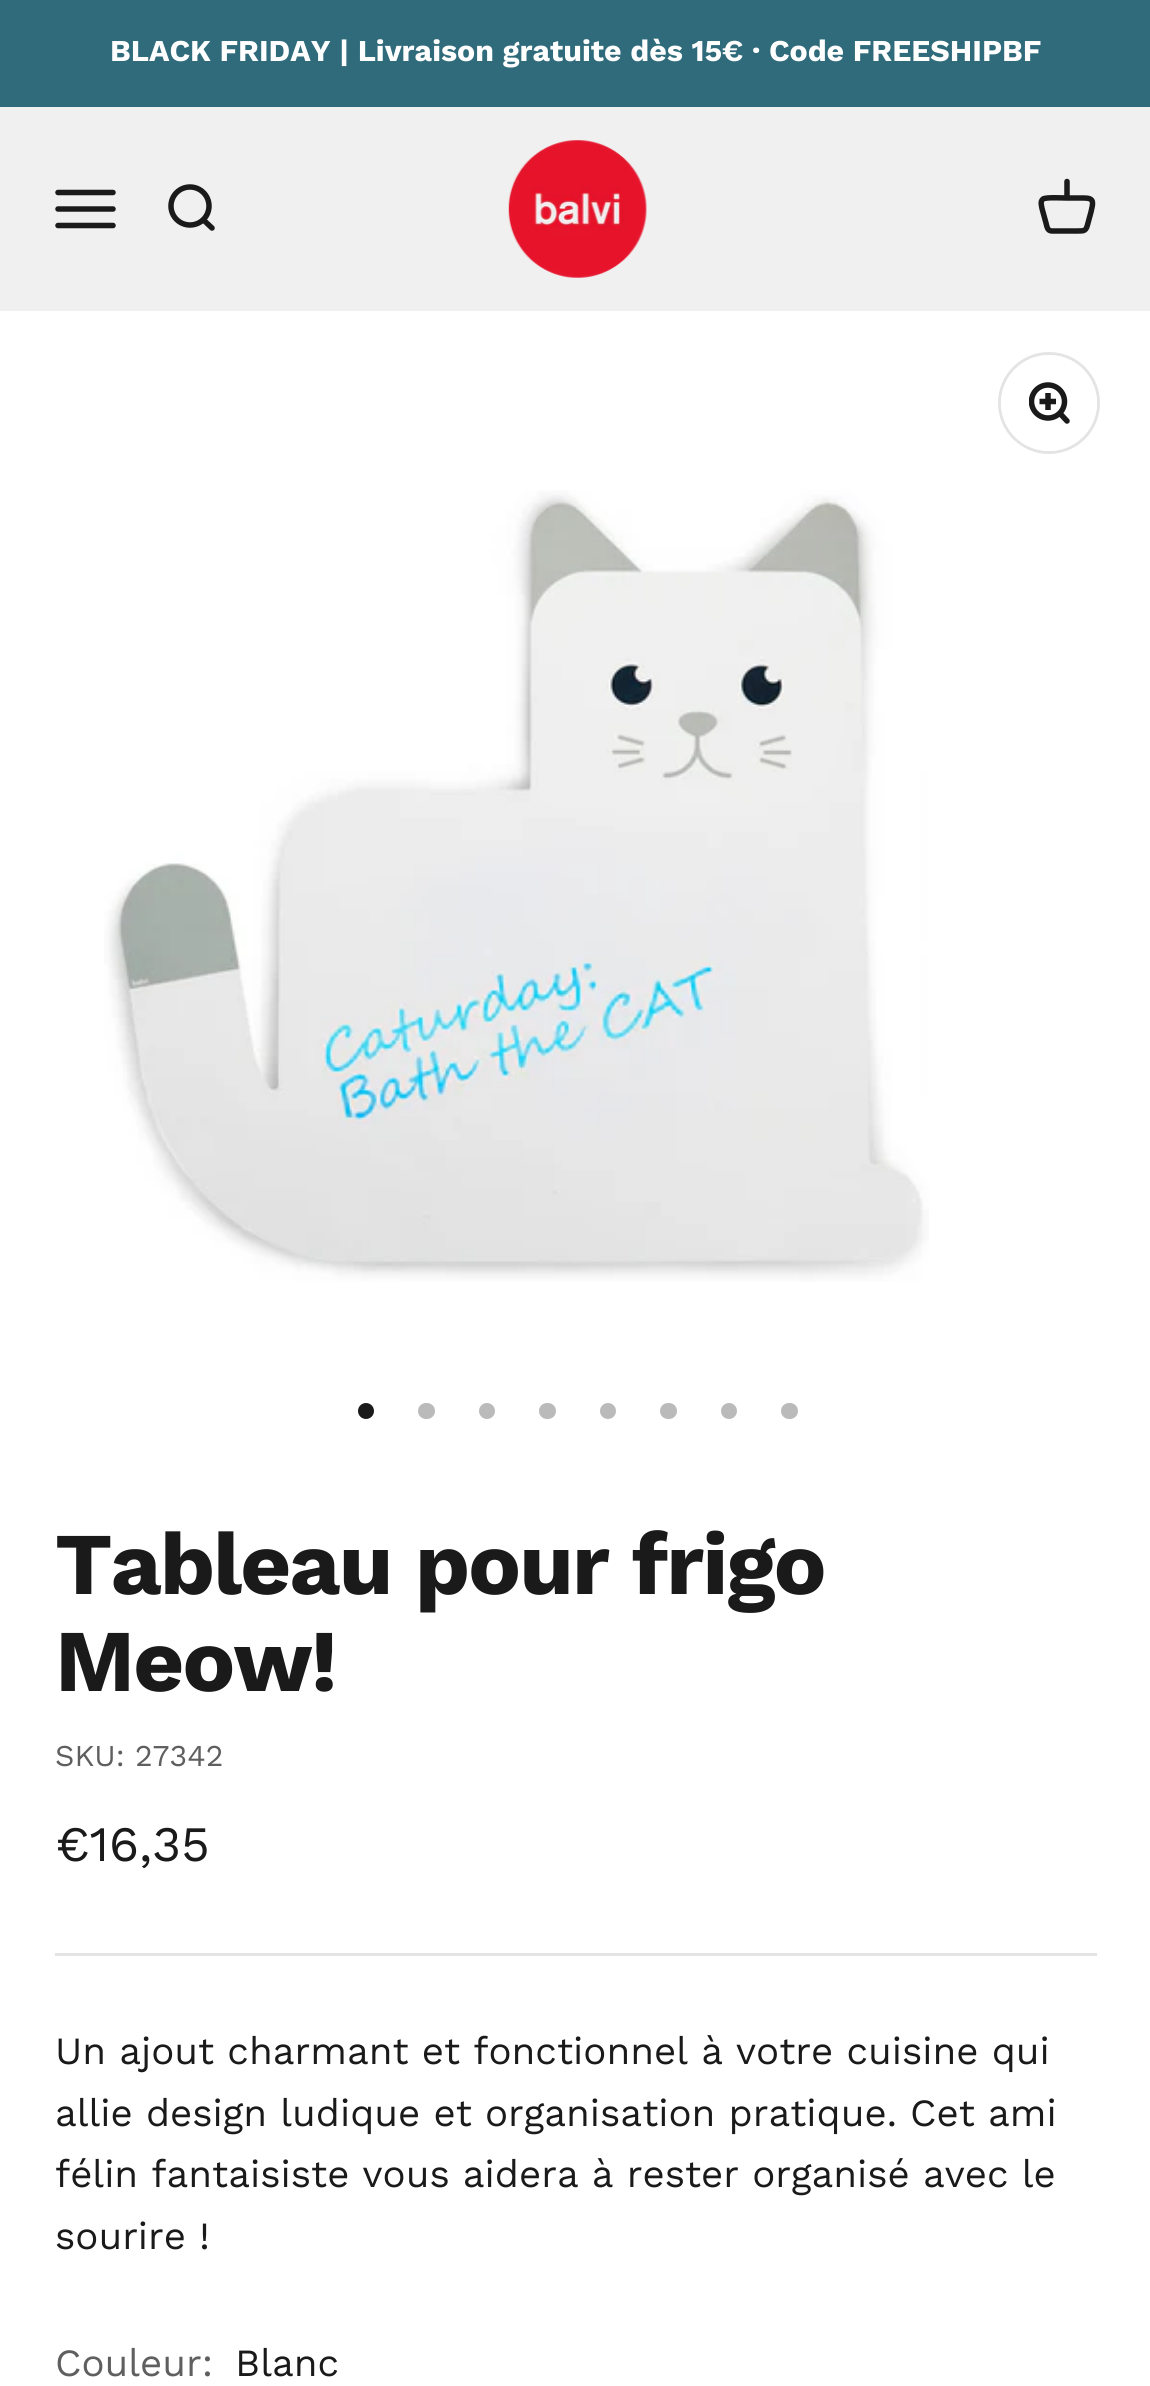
import math
import cairocffi as cairo

surface = cairo.ImageSurface(cairo.FORMAT_RGB24, 1150, 2386)
ctx = cairo.Context(surface)
options = cairo.FontOptions()
options.set_hint_metrics(cairo.HINT_METRICS_OFF)
options.set_hint_style(cairo.HINT_STYLE_NONE)
ctx.set_font_options(options)
ctx.set_miter_limit(4)


def rgb(r, g, b):
    ctx.set_source_rgb(r / 255, g / 255, b / 255)


def face(family, size, italic, bold):
    ctx.select_font_face(family, cairo.FONT_SLANT_ITALIC if italic else cairo.FONT_SLANT_NORMAL, cairo.FONT_WEIGHT_BOLD if bold else cairo.FONT_WEIGHT_NORMAL)
    ctx.set_font_size(size)


def label(x, y, s):
    ctx.move_to(x, y)
    ctx.show_text(s)


def tracked(x, y, s, letter, word):
    ctx.move_to(x, y)
    for ch in s:
        ctx.show_text(ch)
        ctx.rel_move_to(letter + word * (ch == ' '), 0)


def rect(x, y, w, h):
    ctx.rectangle(x, y, w, h)
    ctx.fill()


def rrect(x, y, w, h, r):
    ctx.new_sub_path()
    for i, (u, v) in enumerate([(x + w - r, y + h - r), (x + r, y + h - r), (x + r, y + r), (x + w - r, y + r)]):
        ctx.arc(u, v, r, i * math.pi / 2, (i + 1) * math.pi / 2)
    ctx.close_path()


def image(path, x, y, w, h):
    ctx.save()
    ctx.set_source_surface(cairo.ImageSurface.create_from_png(path), x, y)
    ctx.rectangle(x, y, w, h)
    ctx.fill()
    ctx.restore()


rgb(255, 255, 255)
ctx.paint()
rgb(48, 107, 124)
rect(0, 0, 1150, 107)
face('Work Sans', 30.25, 0, 1)
rgb(255, 255, 255)
label(110, 61, 'BLACK FRIDAY | Livraison gratuite dès 15€ · Code FREESHIPBF')
rgb(240, 240, 240)
rect(0, 107, 1150, 204)
ctx.new_path()
ctx.move_to(58, 192.5)
ctx.line_to(113, 192.5)
ctx.move_to(58, 209)
ctx.line_to(113, 209)
ctx.move_to(58, 225.5)
ctx.line_to(113, 225.5)
rgb(26, 26, 26)
ctx.set_line_width(5.5)
ctx.set_line_cap(cairo.LINE_CAP_ROUND)
ctx.stroke()
ctx.arc(190, 206, 19, 0, 2 * math.pi)
ctx.set_line_cap(cairo.LINE_CAP_BUTT)
ctx.stroke()
ctx.new_path()
ctx.move_to(203.5, 220)
ctx.line_to(212, 228)
ctx.set_line_cap(cairo.LINE_CAP_ROUND)
ctx.set_line_join(cairo.LINE_JOIN_ROUND)
ctx.stroke()
image('image0.png', 508, 140, 139, 138)
ctx.new_path()
ctx.move_to(1067, 198)
ctx.curve_to(1062.5, 198, 1046, 197, 1043, 199)
ctx.curve_to(1040, 201.5, 1041.5, 205.5, 1042, 208.5)
ctx.line_to(1046, 223)
ctx.curve_to(1047, 227, 1047.5, 231, 1052, 231)
ctx.line_to(1077, 231)
ctx.curve_to(1085, 231, 1086, 231, 1088, 223)
ctx.line_to(1091, 212)
ctx.curve_to(1093, 203, 1095, 198, 1084, 198)
ctx.close_path()
ctx.move_to(1067, 198)
ctx.line_to(1067, 181.5)
ctx.stroke()
ctx.arc(1049, 403, 49.5, 0, 2 * math.pi)
rgb(228, 228, 228)
ctx.set_line_width(3)
ctx.set_line_cap(cairo.LINE_CAP_BUTT)
ctx.set_line_join(cairo.LINE_JOIN_MITER)
ctx.stroke()
rgb(255, 255, 255)
ctx.arc(1049, 403, 48, 0, 2 * math.pi)
ctx.fill()
ctx.save()
ctx.rectangle(1029, 382, 41, 42)
ctx.clip()
ctx.arc(1048, 401.5, 16.5, 0, 2 * math.pi)
rgb(26, 26, 26)
ctx.set_line_width(5.5)
ctx.stroke()
ctx.restore()
ctx.new_path()
ctx.move_to(1060, 413.5)
ctx.line_to(1067, 421)
rgb(26, 26, 26)
ctx.set_line_width(5.5)
ctx.set_line_cap(cairo.LINE_CAP_ROUND)
ctx.set_line_join(cairo.LINE_JOIN_ROUND)
ctx.stroke()
ctx.new_path()
ctx.move_to(1048, 393)
ctx.line_to(1048, 410)
ctx.move_to(1039.5, 401.5)
ctx.line_to(1056, 401.5)
ctx.set_line_cap(cairo.LINE_CAP_BUTT)
ctx.set_line_join(cairo.LINE_JOIN_MITER)
ctx.stroke()
image('image1.png', 104, 490, 825, 792)
ctx.arc(366, 1411, 8, 0, 2 * math.pi)
ctx.fill()
rgb(186, 186, 186)
rrect(418, 1403, 17, 16, 8)
ctx.fill()
ctx.arc(487, 1411, 8, 0, 2 * math.pi)
ctx.fill()
rrect(539, 1403, 17, 16, 8)
ctx.fill()
ctx.arc(608, 1411, 8, 0, 2 * math.pi)
ctx.fill()
rrect(660, 1403, 17, 16, 8)
ctx.fill()
ctx.arc(729, 1411, 8, 0, 2 * math.pi)
ctx.fill()
rrect(781, 1403, 17, 16, 8)
ctx.fill()
face('Work Sans', 88, 0, 1)
rgb(26, 26, 26)
tracked(55, 1594, 'Tableau pour frigo', -1.75, 0)
tracked(55, 1691, 'Meow!', -1.75, 0)
face('Work Sans', 30.25, 0, 0)
rgb(95, 95, 95)
label(55, 1766, 'SKU: 27342')
face('Work Sans', 49.5, 0, 0)
rgb(26, 26, 26)
label(55, 1861, '€16,35')
rgb(228, 228, 228)
rect(55, 1953, 1042, 3)
face('Work Sans', 38.5, 0, 0)
rgb(26, 26, 26)
label(55, 2064, 'Un ajout charmant et fonctionnel à votre cuisine qui')
label(55, 2126, 'allie design ludique et organisation pratique. Cet ami')
label(55, 2187, 'félin fantaisiste vous aidera à rester organisé avec le')
label(55, 2249, 'sourire !')
rgb(95, 95, 95)
label(55, 2376, 'Couleur:')
rgb(26, 26, 26)
label(235, 2376, 'Blanc')
surface.write_to_png('render.png')
